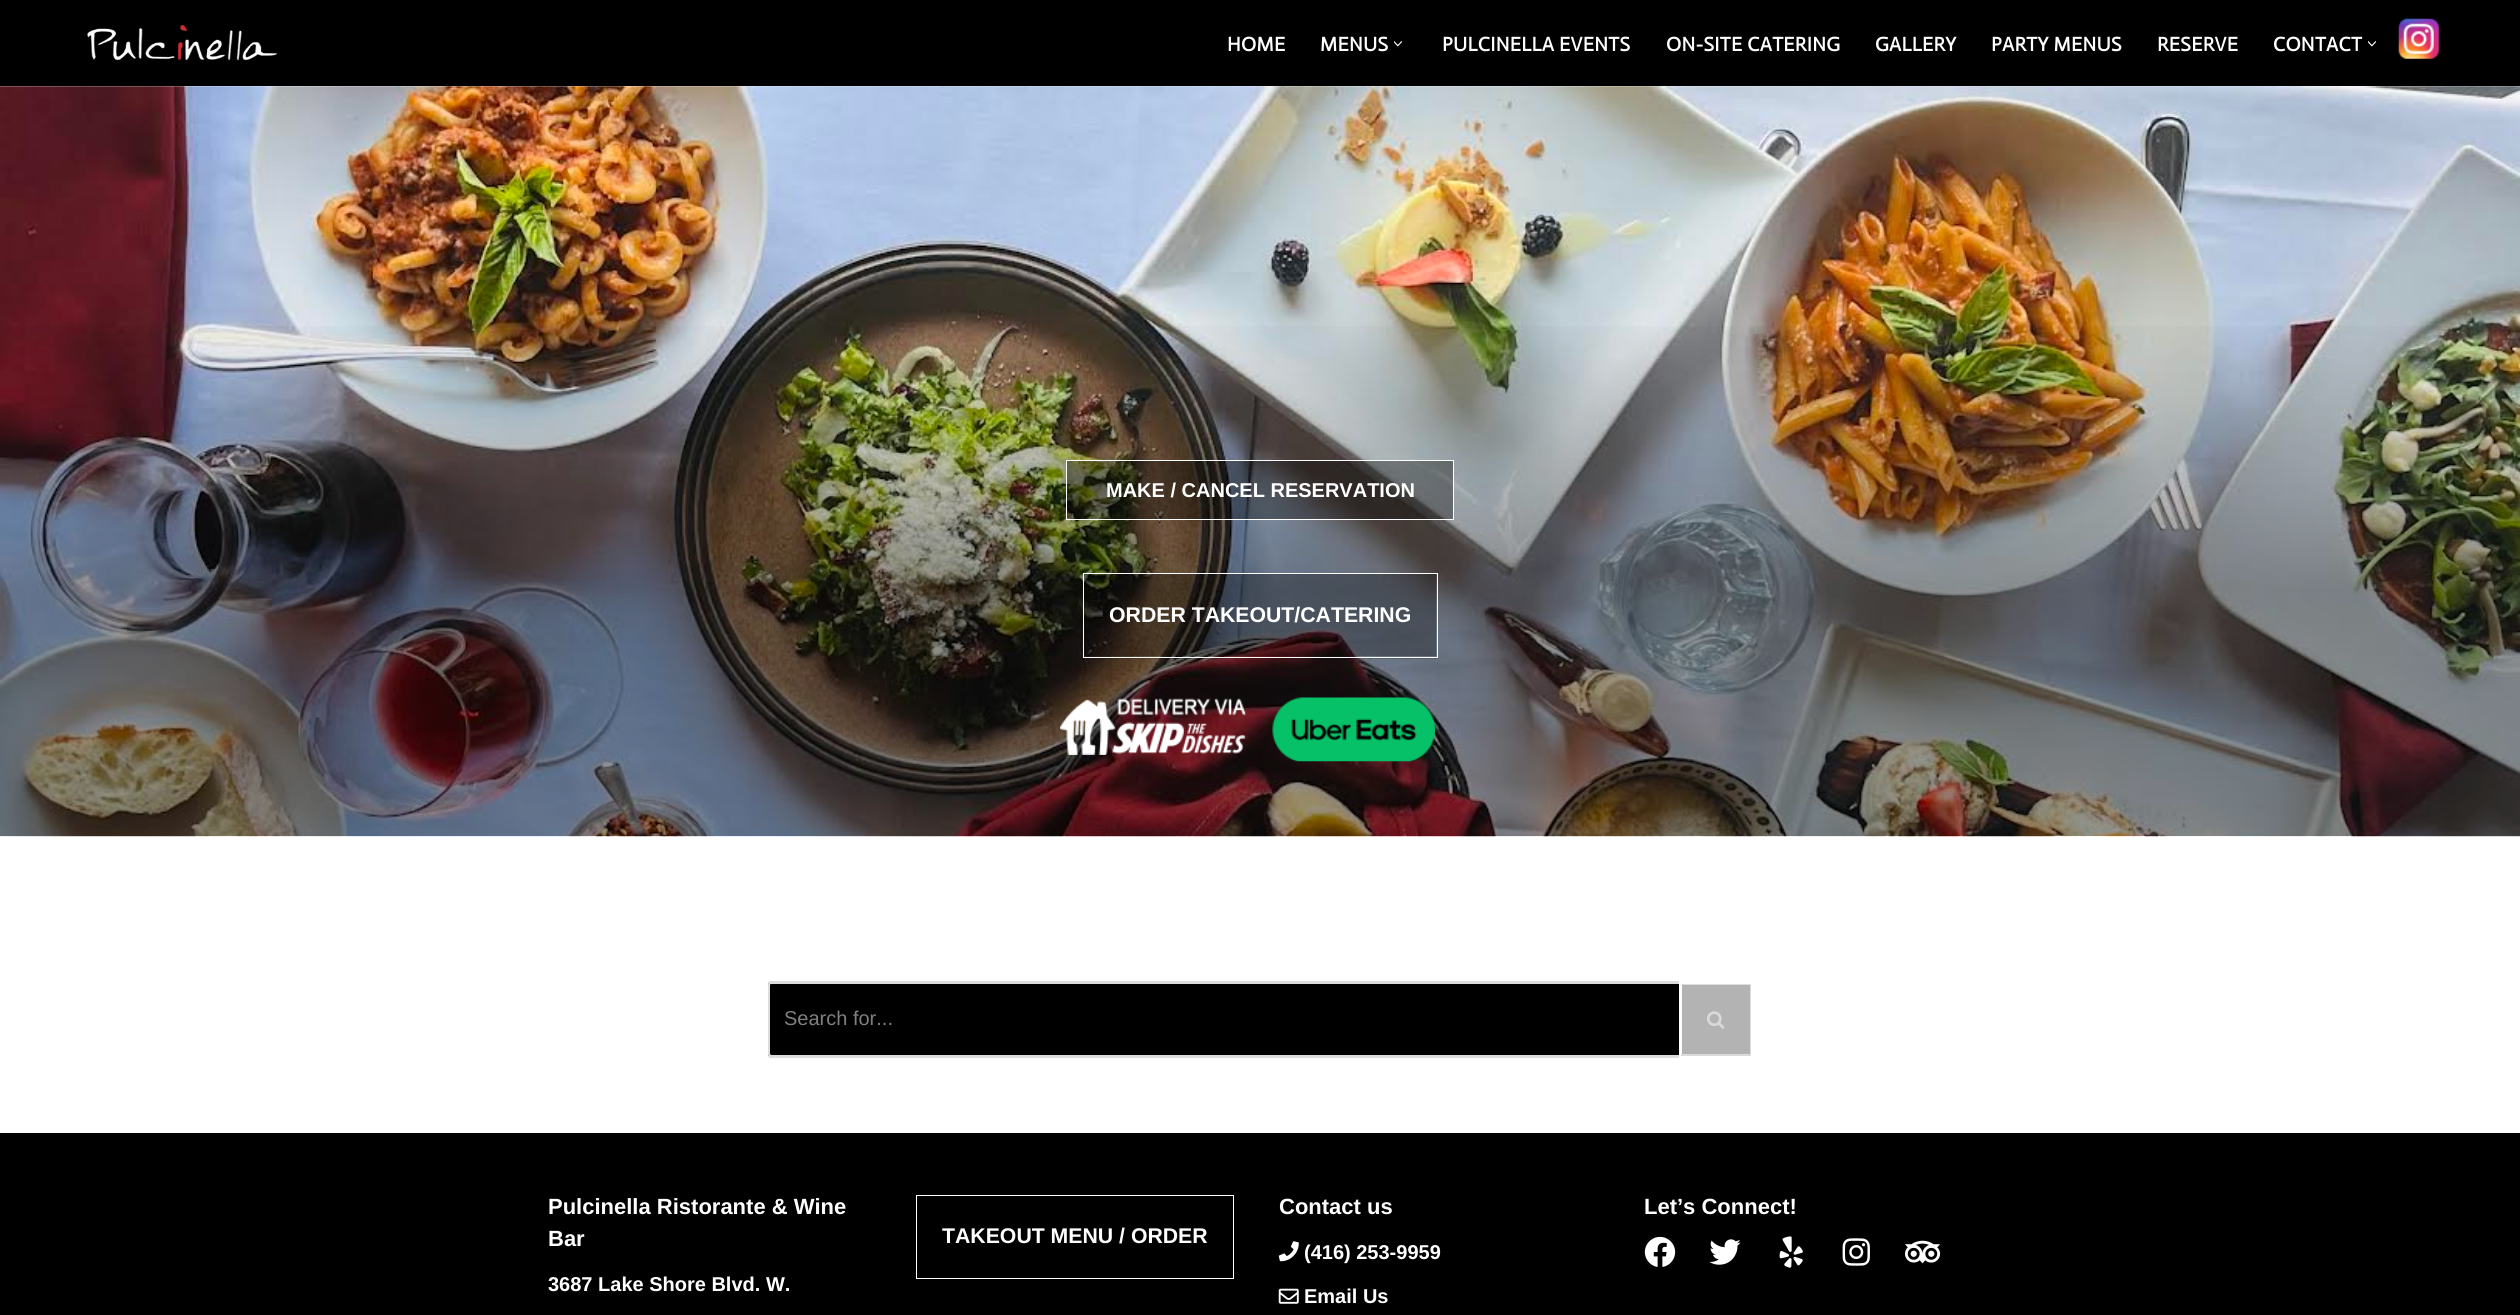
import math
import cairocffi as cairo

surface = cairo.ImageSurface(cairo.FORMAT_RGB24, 2520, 1315)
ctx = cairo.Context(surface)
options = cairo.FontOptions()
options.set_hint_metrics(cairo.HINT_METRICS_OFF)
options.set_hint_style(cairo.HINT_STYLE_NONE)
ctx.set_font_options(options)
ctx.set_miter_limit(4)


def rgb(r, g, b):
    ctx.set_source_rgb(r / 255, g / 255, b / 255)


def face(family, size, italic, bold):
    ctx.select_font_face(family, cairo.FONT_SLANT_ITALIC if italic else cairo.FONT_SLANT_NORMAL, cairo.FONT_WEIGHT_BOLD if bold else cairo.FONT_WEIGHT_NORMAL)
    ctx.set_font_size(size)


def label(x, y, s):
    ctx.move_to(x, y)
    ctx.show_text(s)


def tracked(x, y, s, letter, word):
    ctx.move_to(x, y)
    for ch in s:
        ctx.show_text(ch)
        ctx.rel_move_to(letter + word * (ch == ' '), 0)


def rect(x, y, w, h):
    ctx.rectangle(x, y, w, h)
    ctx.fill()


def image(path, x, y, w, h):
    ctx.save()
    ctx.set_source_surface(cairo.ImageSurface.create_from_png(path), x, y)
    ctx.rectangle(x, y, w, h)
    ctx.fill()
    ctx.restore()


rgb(255, 255, 255)
ctx.paint()
rgb(0, 0, 0)
rect(0, 0, 2520, 86)
image('image0.png', 87, 25, 190, 35)
face('Actor', 20, 0, 1)
rgb(255, 255, 255)
tracked(1227, 51, 'HOME', 0.25, 0)
tracked(1320, 51, 'MENUS', 0.25, 0)
image('image1.png', 1394, 41, 9, 6)
tracked(1442, 51, 'PULCINELLA EVENTS', 0.25, 0)
tracked(1666, 51, 'ON-SITE CATERING', 0.25, 0)
tracked(1875, 51, 'GALLERY', 0.25, 0)
tracked(1991, 51, 'PARTY MENUS', 0.25, 0)
tracked(2157, 51, 'RESERVE', 0.25, 0)
tracked(2273, 51, 'CONTACT', 0.25, 0)
image('image2.png', 2368, 41, 8, 6)
image('image3.png', 2398, 18, 41, 41)
image('image4.png', 0, 86, 2520, 751)
gradient = cairo.LinearGradient(1260, 86, 1260, 836)
gradient.add_color_stop_rgba(0.3, 0, 0, 0, 0)
gradient.add_color_stop_rgba(0.67, 0, 0, 0, 0.4)
ctx.set_source(gradient)
rect(0, 326, 2520, 510)
ctx.set_source_rgba(0, 0, 0, 0.35)
ctx.rectangle(1066.5, 460.5, 387, 59)
ctx.fill_preserve()
rgb(255, 255, 255)
ctx.set_line_width(1)
ctx.stroke()
face('Liberation Sans', 20, 0, 1)
label(1106, 497, 'MAKE / CANCEL RESERVATION')
ctx.set_source_rgba(0, 0, 0, 0.15)
ctx.new_path()
ctx.move_to(1083, 658)
ctx.line_to(1083, 659)
ctx.line_to(1438, 659)
ctx.line_to(1438, 574)
ctx.line_to(1438, 658)
ctx.close_path()
ctx.fill()
ctx.set_source_rgba(0, 0, 0, 0.3)
rect(1084, 574, 352, 82)
ctx.rectangle(1083.5, 573.5, 354, 84)
rgb(255, 255, 255)
ctx.stroke()
face('Liberation Sans', 21.25, 0, 1)
label(1109, 622, 'ORDER TAKEOUT/CATERING')
image('image5.png', 1060, 698, 187, 57)
image('image6.png', 1272, 697, 163, 65)
rgb(0, 0, 0)
ctx.new_path()
ctx.move_to(772, 981)
ctx.line_to(1679, 981)
ctx.line_to(1679, 1058)
ctx.line_to(772, 1058)
ctx.curve_to(770, 1058, 768, 1056, 768, 1054)
ctx.line_to(768, 985)
ctx.curve_to(768, 983, 770, 981, 772, 981)
ctx.close_path()
ctx.fill()
rgb(221, 221, 221)
ctx.set_fill_rule(cairo.FILL_RULE_EVEN_ODD)
ctx.new_path()
ctx.move_to(771, 981)
ctx.line_to(1679, 981)
ctx.line_to(1679, 1058)
ctx.line_to(771, 1058)
ctx.curve_to(769, 1058, 768, 1056, 768, 1054)
ctx.line_to(768, 985)
ctx.curve_to(768, 983, 769, 981, 771, 981)
ctx.close_path()
ctx.move_to(771, 984)
ctx.line_to(1679, 984)
ctx.line_to(1679, 1055)
ctx.line_to(771, 1055)
ctx.curve_to(771, 1055, 770, 1054, 770, 1054)
ctx.line_to(770, 985)
ctx.curve_to(770, 984, 771, 984, 771, 984)
ctx.close_path()
ctx.fill()
face('Liberation Sans', 20, 0, 0)
rgb(128, 128, 128)
label(784, 1025, 'Search for...')
rgb(217, 217, 217)
ctx.set_fill_rule(cairo.FILL_RULE_WINDING)
ctx.new_path()
ctx.move_to(1681, 985)
ctx.line_to(1681, 1056)
ctx.line_to(1751, 1056)
ctx.line_to(1751, 1055)
ctx.line_to(1681, 1055)
ctx.close_path()
ctx.fill()
rgb(179, 179, 179)
rect(1682, 985, 68, 69)
rgb(221, 221, 221)
rect(1681, 984, 70, 1)
rect(1750, 984, 1, 71)
rect(1681, 1054, 70, 1)
image('image7.png', 1707, 1011, 18, 18)
rgb(0, 0, 0)
rect(0, 1133, 2520, 182)
face('Liberation Sans', 22, 0, 1)
rgb(255, 255, 255)
label(548, 1214, 'Pulcinella Ristorante & Wine')
label(548, 1246, 'Bar')
face('Liberation Sans', 20, 0, 1)
label(548, 1291, '3687 Lake Shore Blvd. W.')
face('Liberation Sans', 22, 0, 1)
label(1279, 1214, 'Contact us')
image('image8.png', 1278, 1241, 21, 21)
face('Liberation Sans', 20, 0, 1)
label(1304, 1259, '(416) 253-9959')
image('image9.png', 1278, 1288, 21, 16)
label(1304, 1303, 'Email Us')
face('Liberation Sans', 22, 0, 1)
label(1644, 1214, 'Let’s Connect!')
image('image10.png', 1644, 1236, 32, 31)
image('image11.png', 1709, 1239, 32, 26)
image('image12.png', 1779, 1236, 24, 32)
image('image13.png', 1842, 1238, 28, 28)
image('image14.png', 1905, 1240, 36, 24)
ctx.rectangle(916.5, 1195.5, 317, 83)
ctx.stroke()
face('Liberation Sans', 21.25, 0, 1)
label(942, 1243, 'TAKEOUT MENU / ORDER')
surface.write_to_png('render.png')
